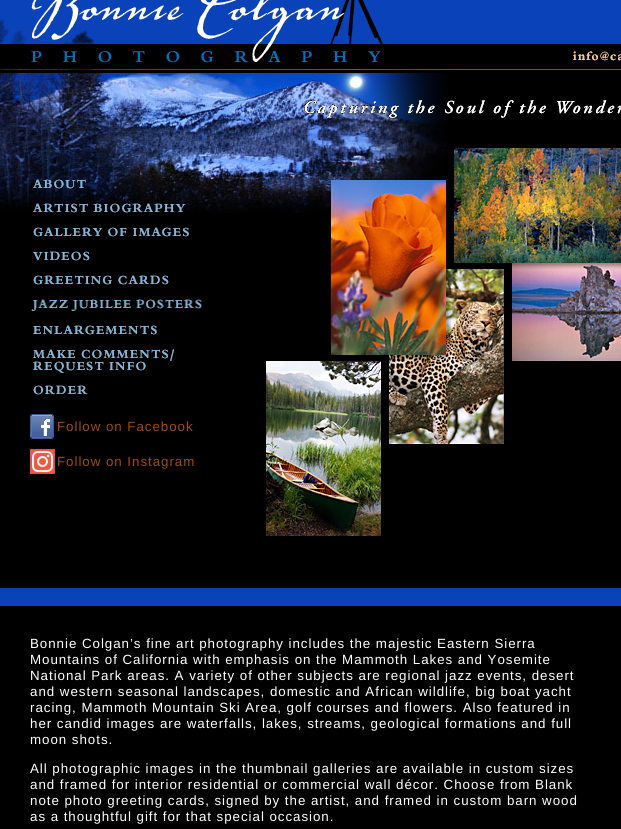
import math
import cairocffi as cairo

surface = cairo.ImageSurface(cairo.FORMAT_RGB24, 621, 829)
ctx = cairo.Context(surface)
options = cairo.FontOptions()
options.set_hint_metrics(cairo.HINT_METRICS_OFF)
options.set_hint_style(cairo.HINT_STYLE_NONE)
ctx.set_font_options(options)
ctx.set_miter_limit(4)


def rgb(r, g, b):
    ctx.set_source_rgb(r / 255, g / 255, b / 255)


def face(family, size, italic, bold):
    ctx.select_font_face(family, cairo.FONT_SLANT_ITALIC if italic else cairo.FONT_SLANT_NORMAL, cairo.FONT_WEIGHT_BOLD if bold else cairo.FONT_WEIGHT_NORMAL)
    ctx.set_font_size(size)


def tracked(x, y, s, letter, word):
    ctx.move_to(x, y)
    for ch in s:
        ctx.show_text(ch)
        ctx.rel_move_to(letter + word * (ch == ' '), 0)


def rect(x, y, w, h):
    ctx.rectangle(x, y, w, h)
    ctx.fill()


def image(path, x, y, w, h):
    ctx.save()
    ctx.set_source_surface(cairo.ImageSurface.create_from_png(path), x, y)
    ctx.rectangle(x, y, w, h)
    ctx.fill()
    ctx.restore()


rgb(0, 0, 0)
ctx.paint()
image('image0.png', 451, 0, 170, 70)
image('image1.png', 0, 0, 451, 70)
image('image2.png', 573, 51, 48, 10)
image('image8.png', 0, 73, 448, 140)
image('image22.png', 389, 269, 115, 175)
image('image3.png', 331, 180, 115, 175)
image('image4.png', 454, 148, 167, 115)
image('image23.png', 512, 263, 109, 98)
image('image5.png', 512, 263, 109, 6)
image('image6.png', 446, 271, 5, 84)
image('image7.png', 389, 355, 62, 6)
image('image9.png', 30, 177, 179, 13)
image('image10.png', 30, 201, 179, 12)
image('image11.png', 33, 227, 156, 10)
image('image12.png', 33, 251, 57, 10)
image('image13.png', 33, 275, 136, 10)
image('image14.png', 31, 299, 171, 12)
image('image15.png', 33, 325, 124, 10)
image('image16.png', 33, 349, 141, 24)
image('image17.png', 33, 385, 55, 10)
image('image18.png', 30, 414, 24, 25)
face('Liberation Sans', 13.35, 0, 0)
rgb(163, 72, 16)
tracked(57, 431, 'Follow on Facebook', 0.95, 0)
image('image19.png', 30, 449, 25, 25)
tracked(57, 466, 'Follow on Instagram', 0.95, 0)
image('image20.png', 304, 100, 317, 18)
image('image21.png', 266, 361, 115, 175)
rgb(9, 66, 185)
rect(0, 588, 621, 18)
rgb(255, 255, 255)
tracked(30, 648, 'Bonnie Colgan’s fine art photography includes the majestic Eastern Sierra', 0.95, 0)
tracked(30, 664, 'Mountains of California with emphasis on the Mammoth Lakes and Yosemite', 0.95, 0)
tracked(30, 680, 'National Park areas. A variety of other subjects are regional jazz events, desert', 0.95, 0)
tracked(30, 696, 'and western seasonal landscapes, domestic and African wildlife, big boat yacht', 0.95, 0)
tracked(30, 712, 'racing, Mammoth Mountain Ski Area, golf courses and flowers. Also featured in', 0.95, 0)
tracked(30, 728, 'her candid images are waterfalls, lakes, streams, geological formations and full', 0.95, 0)
tracked(30, 744, 'moon shots.', 0.95, 0)
tracked(30, 773, 'All photographic images in the thumbnail galleries are available in custom sizes', 0.95, 0)
tracked(30, 789, 'and framed for interior residential or commercial wall décor. Choose from Blank', 0.95, 0)
tracked(30, 805, 'note photo greeting cards, signed by the artist, and framed in custom barn wood', 0.95, 0)
tracked(30, 821, 'as a thoughtful gift for that special occasion.', 0.95, 0)
surface.write_to_png('render.png')
